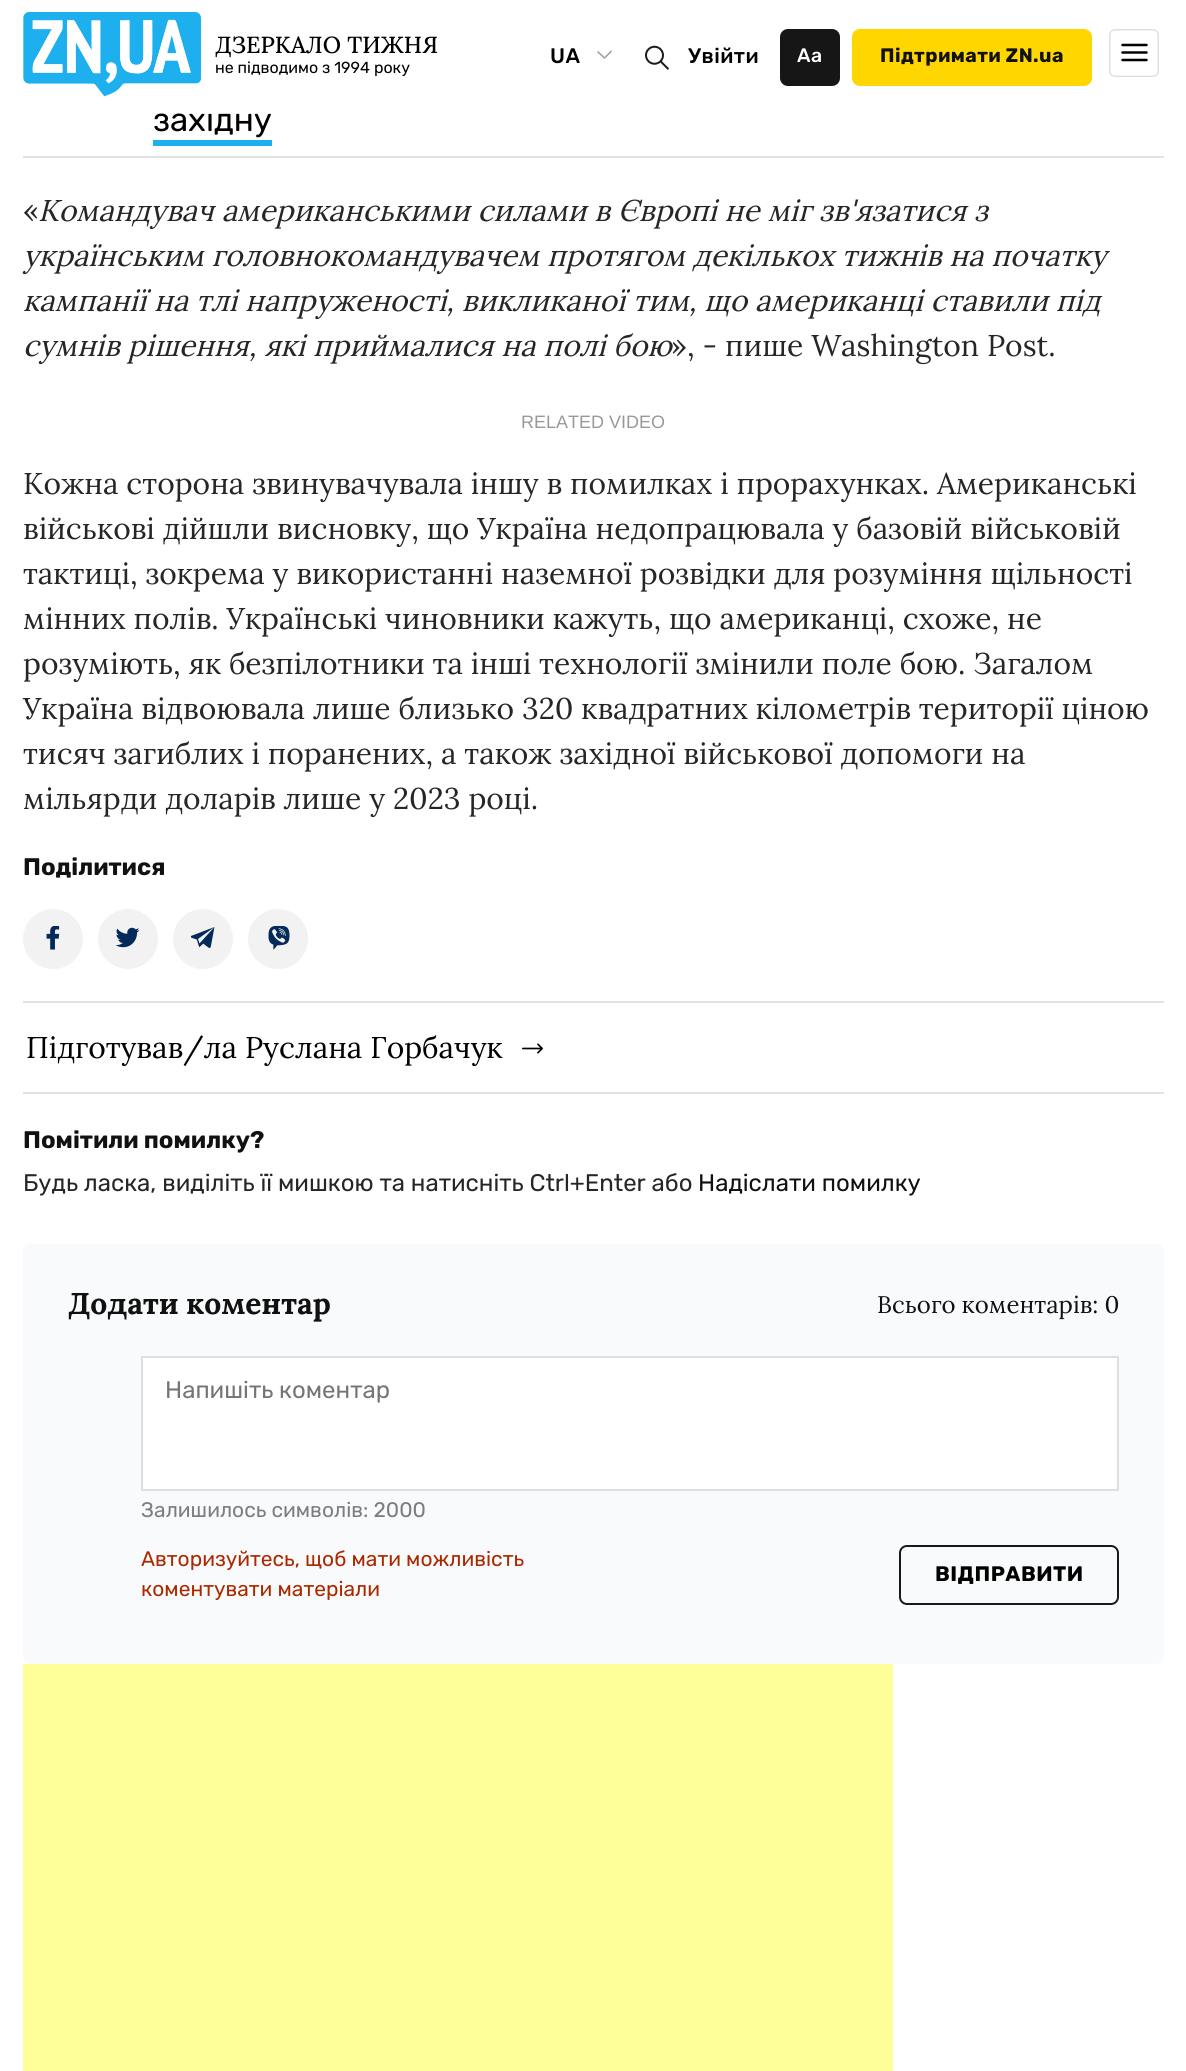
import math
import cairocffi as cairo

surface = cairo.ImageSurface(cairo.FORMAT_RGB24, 1186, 2071)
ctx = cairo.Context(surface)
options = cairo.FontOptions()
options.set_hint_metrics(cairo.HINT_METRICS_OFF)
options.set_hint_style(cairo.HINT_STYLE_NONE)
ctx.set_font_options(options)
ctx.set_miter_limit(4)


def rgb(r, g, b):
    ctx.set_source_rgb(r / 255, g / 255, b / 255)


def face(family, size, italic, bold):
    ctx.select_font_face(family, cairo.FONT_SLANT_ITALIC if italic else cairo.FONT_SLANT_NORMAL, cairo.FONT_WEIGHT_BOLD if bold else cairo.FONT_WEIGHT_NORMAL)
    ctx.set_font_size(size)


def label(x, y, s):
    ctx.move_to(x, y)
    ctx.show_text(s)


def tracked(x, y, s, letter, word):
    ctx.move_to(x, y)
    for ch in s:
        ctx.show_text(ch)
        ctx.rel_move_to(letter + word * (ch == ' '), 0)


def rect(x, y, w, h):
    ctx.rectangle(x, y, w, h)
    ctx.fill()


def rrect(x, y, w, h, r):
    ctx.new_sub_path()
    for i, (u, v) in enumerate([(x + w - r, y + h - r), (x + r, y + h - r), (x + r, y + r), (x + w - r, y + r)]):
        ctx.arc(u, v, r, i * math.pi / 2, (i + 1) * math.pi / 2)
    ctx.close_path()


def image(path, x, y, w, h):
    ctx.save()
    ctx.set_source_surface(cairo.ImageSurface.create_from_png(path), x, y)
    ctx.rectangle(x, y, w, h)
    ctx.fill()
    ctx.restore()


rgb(255, 255, 255)
ctx.paint()
face('Rubik', 33, 0, 0)
rgb(0, 0, 0)
label(153, 131, 'західну')
rgb(255, 255, 255)
rect(208, 107, 4, 4)
image('image0.png', 23, 12, 178, 85)
face('Lora Medium', 23.25, 0, 0)
rgb(0, 0, 0)
label(215, 53, 'ДЗЕРКАЛО ТИЖНЯ')
face('Rubik', 16, 0, 0)
label(215, 73, 'не підводимо з 1994 року')
face('Rubik Medium', 21, 0, 0)
tracked(550, 63, 'UA', 0.5, 0)
rgb(153, 153, 153)
ctx.new_path()
ctx.move_to(612, 51.5)
ctx.line_to(604.5, 59)
ctx.line_to(604.5, 57)
ctx.line_to(611, 50.5)
ctx.close_path()
ctx.fill()
ctx.set_source_rgba(0, 0, 0, 0.4)
ctx.new_path()
ctx.move_to(604.5, 59)
ctx.line_to(597, 52)
ctx.line_to(598, 51)
ctx.line_to(604.5, 57)
ctx.close_path()
ctx.fill()
image('image1.png', 645, 45, 24, 25)
rgb(0, 0, 0)
tracked(688, 63, 'Увійти', 0.5, 0)
rgb(22, 22, 22)
rrect(780, 29, 60, 57, 8)
ctx.fill()
face('Rubik Medium', 19.5, 0, 0)
rgb(255, 255, 255)
tracked(797, 62, 'Аа', 0.4, 0)
rgb(255, 214, 0)
rrect(853, 30, 238, 55, 7)
ctx.fill_preserve()
ctx.stroke()
face('Rubik', 19.5, 0, 1)
rgb(17, 17, 17)
tracked(880, 62, 'Підтримати ZN.ua', 0.4, 0)
rrect(1109.75, 29.75, 48.5, 46.5, 5.25)
rgb(224, 224, 224)
ctx.set_line_width(1.5)
ctx.stroke()
ctx.new_path()
ctx.move_to(1122.5, 45)
ctx.line_to(1146.5, 45)
ctx.move_to(1122.5, 52.5)
ctx.line_to(1146.5, 52.5)
ctx.move_to(1122.5, 60)
ctx.line_to(1146.5, 60)
rgb(0, 0, 0)
ctx.set_line_width(2.5)
ctx.set_line_cap(cairo.LINE_CAP_ROUND)
ctx.stroke()
rgb(226, 226, 226)
rect(23, 156, 1141, 2)
rgb(30, 176, 238)
rect(153, 140, 119, 6)
face('Lora', 30, 0, 0)
rgb(38, 38, 38)
label(23, 221, '«')
face('Lora', 30, 1, 0)
label(38, 221, 'Командувач американськими силами в Європі не міг зв\'язатися з')
label(23, 266, 'українським головнокомандувачем протягом декількох тижнів на початку')
label(23, 311, 'кампанії на тлі напруженості, викликаної тим, що американці ставили під')
label(23, 356, 'сумнів рішення, які приймалися на полі бою')
face('Lora', 30, 0, 0)
label(671, 356, '», - пише Washington Post.')
face('Liberation Sans', 18, 0, 0)
rgb(153, 153, 153)
label(521, 428, 'RELATED VIDEO')
face('Lora', 30, 0, 0)
rgb(38, 38, 38)
label(23, 494, 'Кожна сторона звинувачувала іншу в помилках і прорахунках. Американські')
label(23, 539, 'військові дійшли висновку, що Україна недопрацювала у базовій військовій')
label(23, 584, 'тактиці, зокрема у використанні наземної розвідки для розуміння щільності')
label(23, 629, 'мінних полів. Українські чиновники кажуть, що американці, схоже, не')
label(23, 674, 'розуміють, як безпілотники та інші технології змінили поле бою. Загалом')
label(23, 719, 'Україна відвоювала лише близько 320 квадратних кілометрів території ціною')
label(23, 764, 'тисяч загиблих і поранених, а також західної військової допомоги на')
label(23, 809, 'мільярди доларів лише у 2023 році.')
face('Rubik', 24, 0, 1)
rgb(17, 17, 17)
label(23, 875, 'Поділитися')
rgb(242, 242, 242)
ctx.new_path()
ctx.arc(53, 939, 30, 0, 2 * math.pi)
ctx.fill()
image('image2.png', 46, 926, 14, 24)
ctx.arc(128, 939, 30, 0, 2 * math.pi)
ctx.fill()
image('image3.png', 116, 927, 24, 21)
ctx.arc(203, 939, 30, 0, 2 * math.pi)
ctx.fill()
image('image4.png', 191, 927, 24, 21)
ctx.arc(278, 939, 30, 0, 2 * math.pi)
ctx.fill()
image('image5.png', 268, 926, 22, 24)
rgb(226, 226, 226)
rect(23, 1001, 1141, 2)
rect(23, 1092, 1141, 2)
face('Lora', 30, 0, 0)
rgb(0, 0, 0)
label(26, 1058, 'Підготував/ла Руслана Горбачук')
image('image6.png', 522, 1043, 21, 11)
face('Rubik', 24, 0, 1)
rgb(17, 17, 17)
label(23, 1148, 'Помітили помилку?')
face('Rubik', 24, 0, 0)
rgb(38, 38, 38)
label(23, 1191, 'Будь ласка, виділіть її мишкою та натисніть Ctrl+Enter або')
rgb(17, 17, 17)
label(698, 1191, 'Надіслати помилку')
rgb(249, 250, 251)
rrect(23, 1244, 1141, 420, 8)
ctx.fill()
face('Lora', 30, 0, 1)
rgb(17, 17, 17)
label(68, 1314, 'Додати коментар')
face('Lora', 24, 0, 0)
label(877, 1313, 'Всього коментарів: 0')
rgb(255, 255, 255)
ctx.rectangle(142, 1357, 976, 133)
ctx.fill_preserve()
rgb(223, 223, 223)
ctx.set_line_width(2)
ctx.set_line_cap(cairo.LINE_CAP_BUTT)
ctx.stroke()
face('Rubik', 24, 0, 0)
rgb(117, 117, 117)
label(165, 1398, 'Напишіть коментар')
face('Rubik', 21, 0, 0)
rgb(125, 125, 126)
label(141, 1517, 'Залишилось символів: 2000')
rgb(171, 41, 0)
label(141, 1566, 'Авторизуйтесь, щоб мати можливість')
label(141, 1596, 'коментувати матеріали')
rrect(900, 1546, 218, 58, 7)
rgb(25, 25, 25)
ctx.stroke()
face('Rubik', 21, 0, 1)
rgb(0, 0, 0)
tracked(935, 1581, 'ВІДПРАВИТИ', 0.5, 0)
rgb(255, 255, 153)
rect(23, 1664, 870, 407)
surface.write_to_png('render.png')
